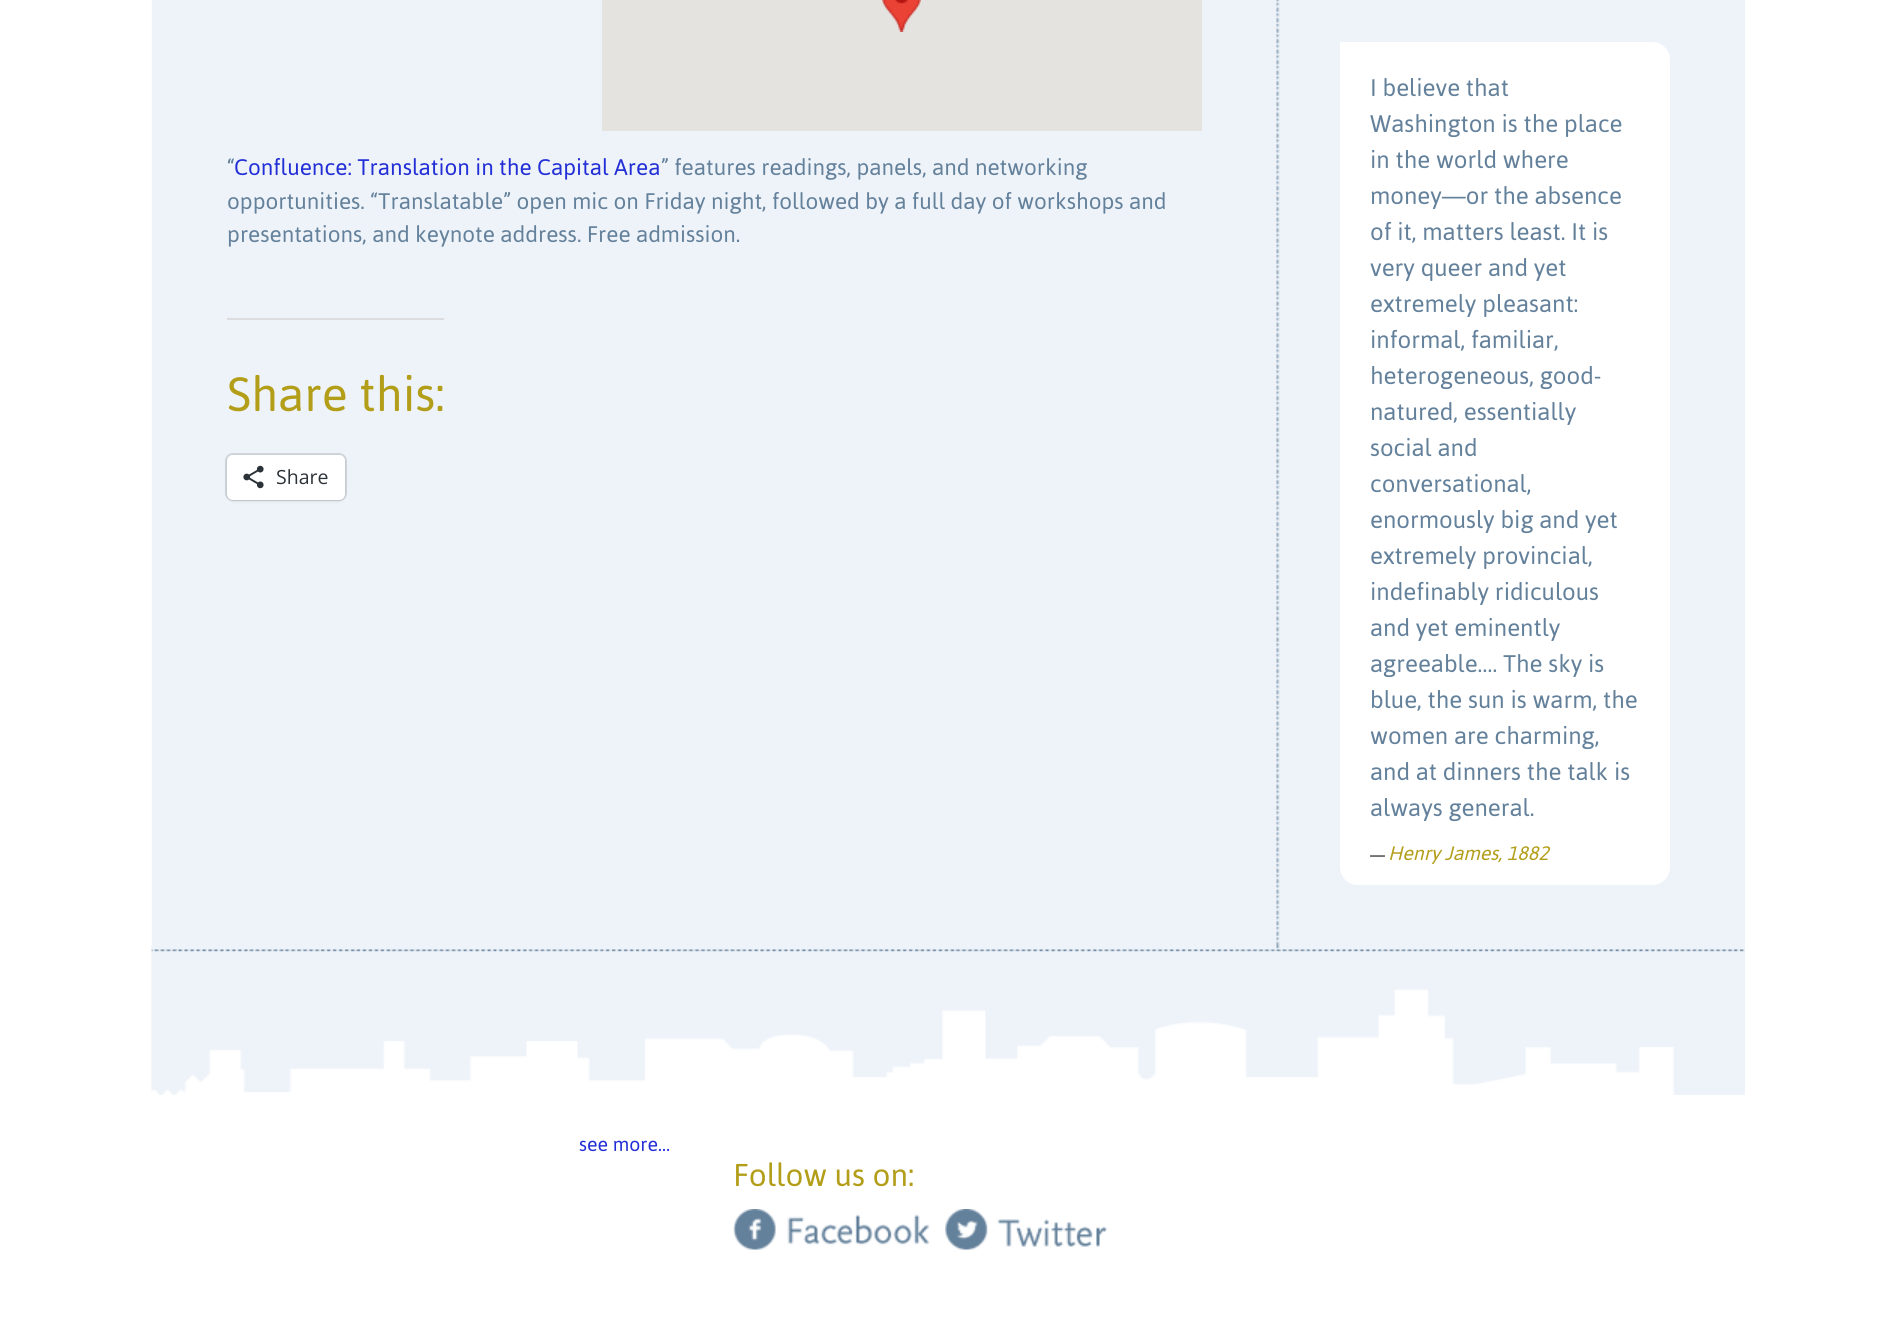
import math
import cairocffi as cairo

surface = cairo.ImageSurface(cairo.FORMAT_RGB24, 1895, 1326)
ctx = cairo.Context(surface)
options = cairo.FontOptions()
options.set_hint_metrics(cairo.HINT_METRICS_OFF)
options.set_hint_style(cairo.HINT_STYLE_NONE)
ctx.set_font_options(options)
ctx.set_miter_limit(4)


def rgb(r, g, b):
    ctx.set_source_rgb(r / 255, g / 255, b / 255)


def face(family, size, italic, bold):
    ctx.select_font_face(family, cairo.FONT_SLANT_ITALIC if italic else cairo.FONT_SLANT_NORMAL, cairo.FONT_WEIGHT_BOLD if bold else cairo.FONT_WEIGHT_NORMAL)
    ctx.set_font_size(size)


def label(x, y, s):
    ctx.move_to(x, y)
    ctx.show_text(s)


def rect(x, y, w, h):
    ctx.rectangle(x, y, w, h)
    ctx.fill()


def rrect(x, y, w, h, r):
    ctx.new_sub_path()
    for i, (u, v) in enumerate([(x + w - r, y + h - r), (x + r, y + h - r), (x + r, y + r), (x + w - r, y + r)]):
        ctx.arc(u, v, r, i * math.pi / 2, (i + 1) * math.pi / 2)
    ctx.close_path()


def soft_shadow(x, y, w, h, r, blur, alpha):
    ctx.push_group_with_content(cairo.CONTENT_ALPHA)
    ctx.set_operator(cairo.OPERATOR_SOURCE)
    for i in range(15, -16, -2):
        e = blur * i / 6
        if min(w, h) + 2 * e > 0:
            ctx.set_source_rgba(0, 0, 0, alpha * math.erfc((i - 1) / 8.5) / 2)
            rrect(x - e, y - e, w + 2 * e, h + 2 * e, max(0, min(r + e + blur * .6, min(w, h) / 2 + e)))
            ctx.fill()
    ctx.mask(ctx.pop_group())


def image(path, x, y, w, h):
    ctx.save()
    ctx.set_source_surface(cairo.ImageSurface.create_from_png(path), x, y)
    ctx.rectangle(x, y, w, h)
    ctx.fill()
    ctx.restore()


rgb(255, 255, 255)
ctx.paint()
rgb(238, 243, 249)
rect(1280, 0, 465, 1095)
image('image0.png', 151, 0, 1129, 1095)
image('image1.png', 151, 945, 1594, 150)
rgb(229, 227, 223)
rect(602, 0, 600, 131)
image('image2.png', 882, 0, 39, 32)
face('Asap', 22.5, 0, 0)
rgb(100, 129, 155)
label(227, 175, '“')
rgb(34, 46, 214)
label(234, 175, 'Confluence: Translation in the Capital Area')
rgb(100, 129, 155)
label(661, 175, '” features readings, panels, and networking')
label(227, 209, 'opportunities. “Translatable” open mic on Friday night, followed by a full day of workshops and')
label(227, 242, 'presentations, and keynote address. Free admission.')
rgb(220, 220, 222)
rect(227, 318, 217, 2)
face('Asap', 48, 0, 0)
rgb(179, 158, 26)
label(227, 411, 'Share this:')
rrect(226, 454, 120, 46, 7)
rgb(209, 214, 219)
ctx.stroke()
rgb(0, 0, 0)
soft_shadow(227, 456, 118, 45, 6, 1.5, 0.12)
rgb(255, 255, 255)
rrect(227, 455, 118, 45, 6)
ctx.fill()
image('image3.png', 243, 465, 21, 24)
face('Open Sans', 19.5, 0, 0)
rgb(44, 51, 56)
label(276, 484, 'Share')
rgb(255, 255, 255)
ctx.new_path()
ctx.move_to(1340, 42)
ctx.line_to(1652, 42)
ctx.curve_to(1662, 42, 1670, 50, 1670, 60)
ctx.line_to(1670, 867)
ctx.curve_to(1670, 877, 1662, 885, 1652, 885)
ctx.line_to(1358, 885)
ctx.curve_to(1348, 885, 1340, 877, 1340, 867)
ctx.close_path()
ctx.fill()
face('Asap', 24, 0, 0)
rgb(100, 129, 155)
label(1370, 96, 'I believe that')
label(1370, 132, 'Washington is the place')
label(1370, 168, 'in the world where')
label(1370, 204, 'money—or the absence')
label(1370, 240, 'of it, matters least. It is')
label(1370, 276, 'very queer and yet')
label(1370, 312, 'extremely pleasant:')
label(1370, 348, 'informal, familiar,')
label(1370, 384, 'heterogeneous, good-')
label(1370, 420, 'natured, essentially')
label(1370, 456, 'social and')
label(1370, 492, 'conversational,')
label(1370, 528, 'enormously big and yet')
label(1370, 564, 'extremely provincial,')
label(1370, 600, 'indefinably ridiculous')
label(1370, 636, 'and yet eminently')
label(1370, 672, 'agreeable…. The sky is')
label(1370, 708, 'blue, the sun is warm, the')
label(1370, 744, 'women are charming,')
label(1370, 780, 'and at dinners the talk is')
label(1370, 816, 'always general.')
face('Asap', 15, 0, 0)
rgb(0, 0, 0)
label(1370, 860, '—')
face('Asap', 19.5, 1, 0)
rgb(179, 158, 26)
label(1388, 860, 'Henry James, 1882')
face('Asap', 19.5, 0, 0)
rgb(34, 46, 214)
label(579, 1151, 'see more…')
face('Asap', 31.5, 0, 0)
rgb(179, 158, 26)
label(733, 1186, 'Follow us on:')
image('image4.png', 733, 1209, 197, 41)
image('image5.png', 945, 1209, 163, 41)
surface.write_to_png('render.png')
